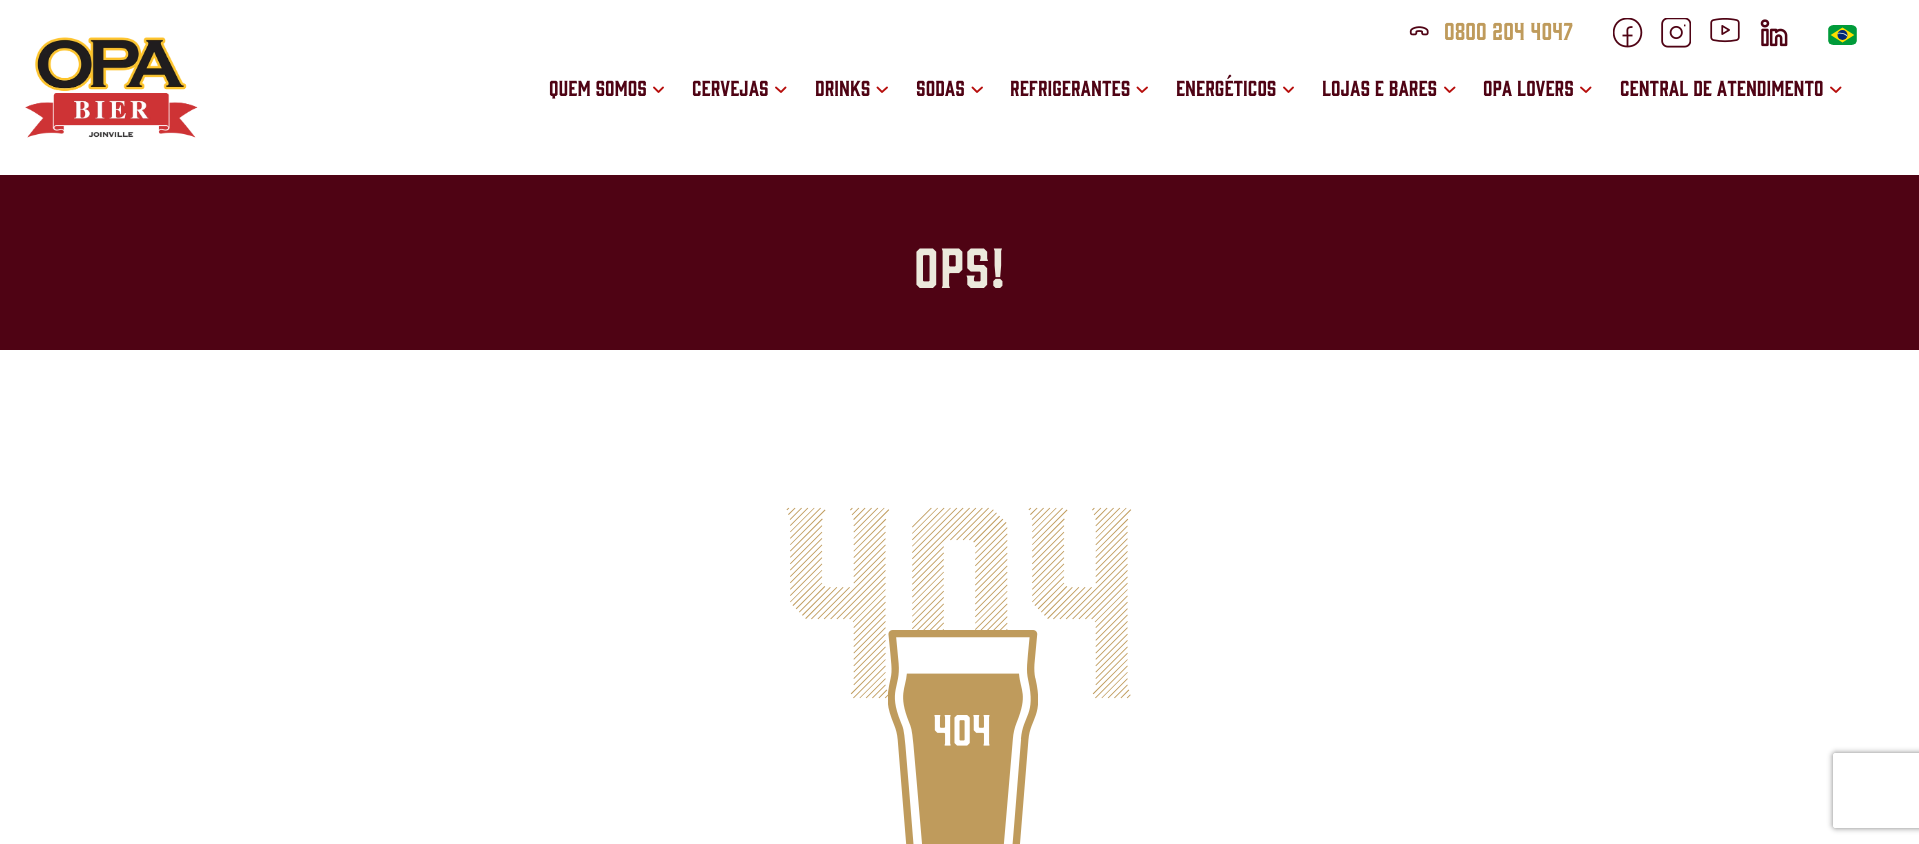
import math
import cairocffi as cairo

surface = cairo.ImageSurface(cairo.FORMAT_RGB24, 1919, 844)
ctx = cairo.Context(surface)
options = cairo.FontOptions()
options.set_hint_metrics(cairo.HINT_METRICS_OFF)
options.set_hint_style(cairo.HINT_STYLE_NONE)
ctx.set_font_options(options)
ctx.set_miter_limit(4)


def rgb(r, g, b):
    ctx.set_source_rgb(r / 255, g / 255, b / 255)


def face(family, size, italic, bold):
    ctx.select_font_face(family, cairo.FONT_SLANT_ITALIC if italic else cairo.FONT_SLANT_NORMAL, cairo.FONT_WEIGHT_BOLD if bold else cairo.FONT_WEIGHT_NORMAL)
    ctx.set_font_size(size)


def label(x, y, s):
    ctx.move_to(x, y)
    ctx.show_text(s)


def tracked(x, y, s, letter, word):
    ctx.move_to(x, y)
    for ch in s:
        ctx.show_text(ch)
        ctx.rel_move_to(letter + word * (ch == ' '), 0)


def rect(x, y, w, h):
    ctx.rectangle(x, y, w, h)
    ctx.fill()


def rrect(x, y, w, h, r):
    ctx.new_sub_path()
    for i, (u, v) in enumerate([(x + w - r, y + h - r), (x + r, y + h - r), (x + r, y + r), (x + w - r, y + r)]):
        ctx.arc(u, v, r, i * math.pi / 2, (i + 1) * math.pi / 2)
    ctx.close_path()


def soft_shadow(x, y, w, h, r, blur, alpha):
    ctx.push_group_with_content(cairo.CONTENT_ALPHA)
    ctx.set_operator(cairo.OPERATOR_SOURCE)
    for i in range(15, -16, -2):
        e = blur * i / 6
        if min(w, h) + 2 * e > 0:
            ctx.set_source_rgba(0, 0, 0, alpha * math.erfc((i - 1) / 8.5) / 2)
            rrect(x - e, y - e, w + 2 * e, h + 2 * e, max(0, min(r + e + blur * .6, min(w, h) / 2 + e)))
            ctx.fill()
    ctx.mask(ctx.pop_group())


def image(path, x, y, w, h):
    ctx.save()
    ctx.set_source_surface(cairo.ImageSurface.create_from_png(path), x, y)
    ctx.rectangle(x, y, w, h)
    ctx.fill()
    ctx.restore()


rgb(255, 255, 255)
ctx.paint()
image('image0.png', 1409, 26, 20, 10)
face('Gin', 22.5, 0, 0)
rgb(191, 155, 92)
label(1444, 40, '0800 204 4047')
ctx.save()
ctx.rectangle(1613, 18, 30, 30)
ctx.clip()
ctx.new_path()
ctx.move_to(1627.5, 46.5)
ctx.curve_to(1609, 46.5, 1609, 18.5, 1627.5, 18.5)
ctx.curve_to(1646, 18.5, 1646, 46.5, 1627.5, 46.5)
ctx.close_path()
ctx.move_to(1627.5, 46.5)
ctx.line_to(1627.5, 35.5)
ctx.curve_to(1627.5, 29.5, 1626, 27, 1632.5, 27)
ctx.move_to(1622.5, 35.5)
ctx.line_to(1632.5, 35.5)
rgb(79, 3, 20)
ctx.set_line_width(1.8)
ctx.stroke()
ctx.restore()
image('image1.png', 1661, 18, 30, 30)
image('image2.png', 1710, 18, 30, 25)
image('image3.png', 1760, 19, 28, 28)
image('image4.png', 1828, 25, 29, 20)
image('image5.png', 25, 37, 173, 101)
face('Gin', 20, 0, 0)
rgb(79, 3, 20)
label(549, 96, 'Quem somos')
ctx.new_path()
ctx.move_to(663, 87.5)
ctx.line_to(658.5, 92)
ctx.line_to(654, 87.5)
rgb(182, 14, 12)
ctx.set_line_width(1.9)
ctx.set_line_cap(cairo.LINE_CAP_ROUND)
ctx.set_line_join(cairo.LINE_JOIN_ROUND)
ctx.stroke()
rgb(79, 3, 20)
label(692, 96, 'Cervejas')
ctx.new_path()
ctx.move_to(785.5, 87.5)
ctx.line_to(781, 92)
ctx.line_to(776, 87.5)
rgb(182, 14, 12)
ctx.stroke()
rgb(79, 3, 20)
label(815, 96, 'Drinks')
ctx.new_path()
ctx.move_to(887, 87.5)
ctx.line_to(882, 92)
ctx.line_to(877.5, 87.5)
rgb(182, 14, 12)
ctx.stroke()
rgb(79, 3, 20)
label(916, 96, 'Sodas')
ctx.new_path()
ctx.move_to(982, 87.5)
ctx.line_to(977, 92)
ctx.line_to(972.5, 87.5)
rgb(182, 14, 12)
ctx.stroke()
rgb(79, 3, 20)
label(1010, 96, 'Refrigerantes')
ctx.new_path()
ctx.move_to(1147, 87.5)
ctx.line_to(1142, 92)
ctx.line_to(1137.5, 87.5)
rgb(182, 14, 12)
ctx.stroke()
rgb(79, 3, 20)
label(1176, 96, 'Energéticos')
ctx.new_path()
ctx.move_to(1293, 87.5)
ctx.line_to(1288.5, 92)
ctx.line_to(1284, 87.5)
rgb(182, 14, 12)
ctx.stroke()
rgb(79, 3, 20)
label(1322, 96, 'Lojas e Bares')
ctx.new_path()
ctx.move_to(1454.5, 87.5)
ctx.line_to(1449.5, 92)
ctx.line_to(1445, 87.5)
rgb(182, 14, 12)
ctx.stroke()
rgb(79, 3, 20)
label(1483, 96, 'Opa Lovers')
ctx.new_path()
ctx.move_to(1590.5, 87.5)
ctx.line_to(1586, 92)
ctx.line_to(1581, 87.5)
rgb(182, 14, 12)
ctx.stroke()
rgb(79, 3, 20)
label(1620, 96, 'Central de Atendimento')
ctx.new_path()
ctx.move_to(1840.5, 87.5)
ctx.line_to(1836, 92)
ctx.line_to(1831, 87.5)
rgb(182, 14, 12)
ctx.stroke()
rgb(79, 3, 20)
rect(0, 175, 1919, 175)
face('Gin', 52, 0, 0)
rgb(236, 233, 220)
tracked(914, 288, 'OPS!', 1, 0)
face('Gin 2', 250, 0, 0)
rgb(191, 155, 92)
label(777, 698, '404')
image('image6.png', 888, 630, 150, 214)
ctx.save()
ctx.set_fill_rule(cairo.FILL_RULE_EVEN_ODD)
ctx.new_path()
ctx.move_to(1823, 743)
ctx.line_to(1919, 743)
ctx.line_to(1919, 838)
ctx.line_to(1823, 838)
ctx.close_path()
ctx.move_to(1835.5, 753)
ctx.line_to(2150.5, 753)
ctx.curve_to(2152, 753, 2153, 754, 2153, 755.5)
ctx.line_to(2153, 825.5)
ctx.curve_to(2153, 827, 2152, 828, 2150.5, 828)
ctx.line_to(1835.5, 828)
ctx.curve_to(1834, 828, 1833, 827, 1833, 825.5)
ctx.line_to(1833, 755.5)
ctx.curve_to(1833, 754, 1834, 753, 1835.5, 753)
ctx.close_path()
ctx.clip()
rgb(128, 128, 128)
soft_shadow(1833, 753, 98, 75, 2.5, 3, 1)
ctx.restore()
surface.write_to_png('render.png')
